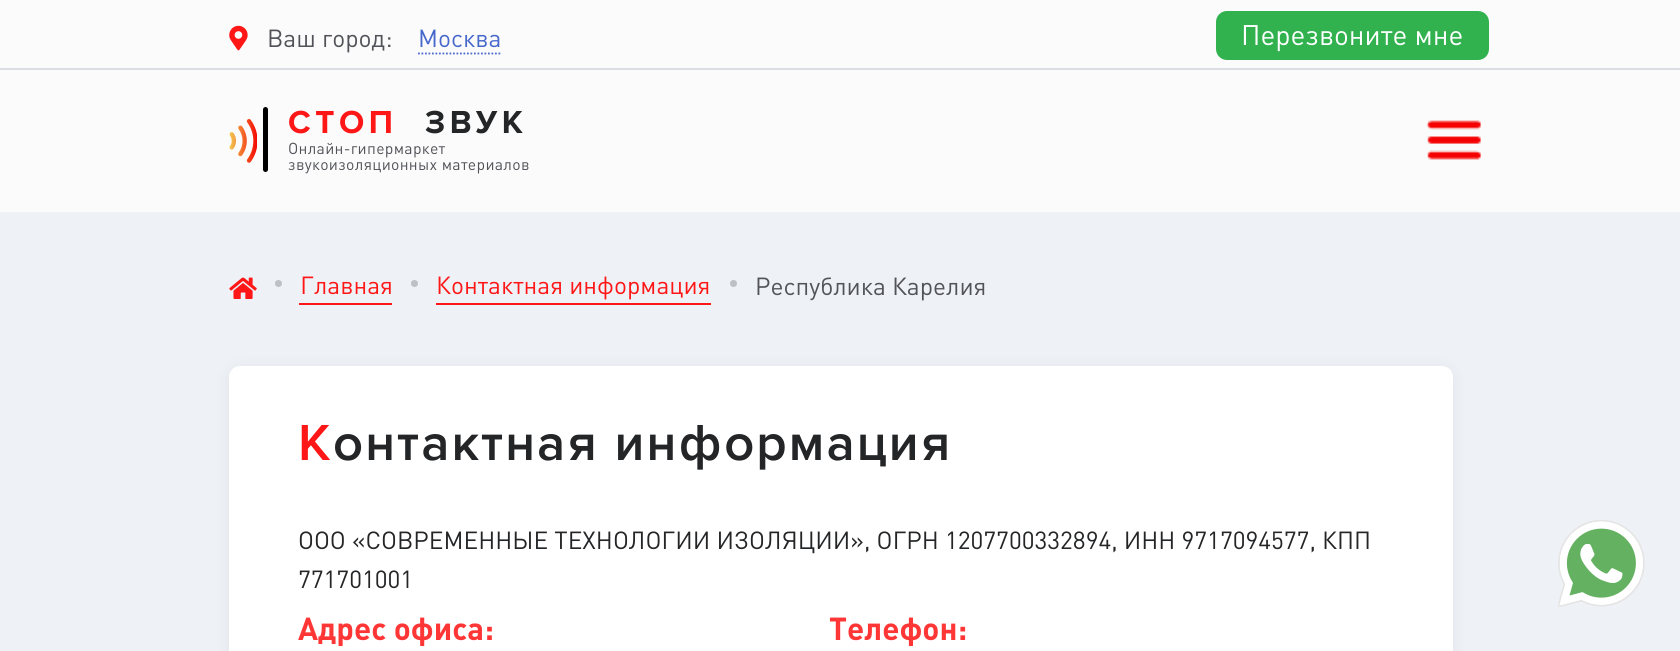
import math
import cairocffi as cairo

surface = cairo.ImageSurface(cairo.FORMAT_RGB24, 1680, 651)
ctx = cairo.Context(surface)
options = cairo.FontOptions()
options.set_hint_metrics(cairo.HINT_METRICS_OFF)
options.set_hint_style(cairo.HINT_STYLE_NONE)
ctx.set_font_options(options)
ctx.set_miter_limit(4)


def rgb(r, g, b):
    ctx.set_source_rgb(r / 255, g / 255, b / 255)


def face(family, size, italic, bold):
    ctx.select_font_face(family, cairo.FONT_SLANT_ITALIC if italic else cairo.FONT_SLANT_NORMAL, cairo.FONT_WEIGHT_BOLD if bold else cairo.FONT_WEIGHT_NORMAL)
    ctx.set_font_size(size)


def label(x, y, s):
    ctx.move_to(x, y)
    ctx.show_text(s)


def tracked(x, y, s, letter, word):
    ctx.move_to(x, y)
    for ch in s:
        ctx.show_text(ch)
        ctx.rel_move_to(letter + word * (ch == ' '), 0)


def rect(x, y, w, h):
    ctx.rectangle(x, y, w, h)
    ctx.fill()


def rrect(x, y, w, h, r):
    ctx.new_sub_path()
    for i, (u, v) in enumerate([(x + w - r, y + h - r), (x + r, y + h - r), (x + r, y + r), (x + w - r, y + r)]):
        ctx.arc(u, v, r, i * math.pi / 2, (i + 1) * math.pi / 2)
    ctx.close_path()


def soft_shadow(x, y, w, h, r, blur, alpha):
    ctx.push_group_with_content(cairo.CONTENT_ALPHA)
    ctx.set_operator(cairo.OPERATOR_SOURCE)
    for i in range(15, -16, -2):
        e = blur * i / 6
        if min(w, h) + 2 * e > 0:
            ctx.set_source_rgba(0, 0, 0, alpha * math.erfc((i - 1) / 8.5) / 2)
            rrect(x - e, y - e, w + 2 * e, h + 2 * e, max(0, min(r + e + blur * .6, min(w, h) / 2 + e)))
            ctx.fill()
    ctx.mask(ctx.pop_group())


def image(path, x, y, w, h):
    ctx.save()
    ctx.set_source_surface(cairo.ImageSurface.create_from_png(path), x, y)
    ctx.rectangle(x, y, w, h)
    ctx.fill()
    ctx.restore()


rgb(238, 241, 245)
ctx.paint()
rgb(251, 251, 251)
rect(0, 0, 1680, 212)
rgb(49, 178, 79)
rrect(1216, 11, 273, 49, 11)
ctx.fill()
face('DIN', 28, 0, 0)
rgb(255, 255, 255)
label(1241, 45, 'Перезвоните мне')
image('image0.png', 229, 119, 28, 44)
rgb(0, 0, 0)
rrect(263, 107, 5, 65, 2.5)
ctx.fill()
face('Proxima Nova', 33, 0, 1)
rgb(255, 22, 22)
tracked(288, 133, 'СТОП', 4.5, 0)
rgb(36, 37, 39)
tracked(425, 133, 'ЗВУК', 4.5, 0)
face('DIN', 15.75, 0, 0)
rgb(82, 83, 89)
tracked(288, 154, 'Онлайн-гипермаркет', 0.3, 0)
tracked(288, 170, 'звукоизоляционных материалов', 0.3, 0)
image('image1.png', 1426, 120, 56, 40)
rgb(218, 221, 225)
rect(0, 68, 1680, 2)
image('image2.png', 229, 25, 19, 26)
face('DIN', 24.5, 0, 0)
rgb(82, 83, 89)
label(267, 47, 'Ваш город:')
rgb(70, 104, 203)
label(418, 47, 'Москва')
ctx.new_path()
ctx.move_to(418, 53.5)
ctx.line_to(500.5, 53.5)
ctx.set_line_width(1.8)
ctx.set_dash([1.75, 1.75])
ctx.stroke()
image('image3.png', 229, 277, 28, 22)
rgb(190, 193, 196)
ctx.arc(278.5, 283.5, 3.5, 0, 2 * math.pi)
ctx.fill()
rgb(255, 22, 22)
rect(299, 303, 93, 2)
label(300, 294, 'Главная')
rgb(190, 193, 196)
ctx.new_path()
ctx.arc(414.5, 283.5, 3.5, 0, 2 * math.pi)
ctx.fill()
rgb(255, 22, 22)
rect(436, 303, 275, 2)
label(436, 294, 'Контактная информация')
rgb(190, 193, 196)
ctx.new_path()
ctx.arc(733.5, 283.5, 3.5, 0, 2 * math.pi)
ctx.fill()
rgb(82, 83, 89)
label(755, 295, 'Республика Карелия')
rgb(36, 37, 39)
soft_shadow(229, 368, 1224, 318, 11, 8, 0.07)
rgb(255, 255, 255)
rrect(229, 366, 1224, 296, 11)
ctx.fill()
face('Proxima Nova SemiBold', 52.5, 0, 0)
rgb(255, 22, 22)
tracked(298, 460, 'К', 2.1, 0)
rgb(36, 37, 39)
tracked(333, 460, 'онтактная информация', 2.1, 0)
face('DIN', 24.5, 0, 0)
label(298, 549, 'ООО «СОВРЕМЕННЫЕ ТЕХНОЛОГИИ ИЗОЛЯЦИИ», ОГРН 1207700332894, ИНН 9717094577, КПП')
label(298, 588, '771701001')
face('DIN', 31.5, 0, 1)
rgb(255, 54, 54)
label(298, 640, 'Адрес офиса:')
label(829, 640, 'Телефон:')
image('image4.png', 1558, 520, 87, 87)
surface.write_to_png('render.png')
